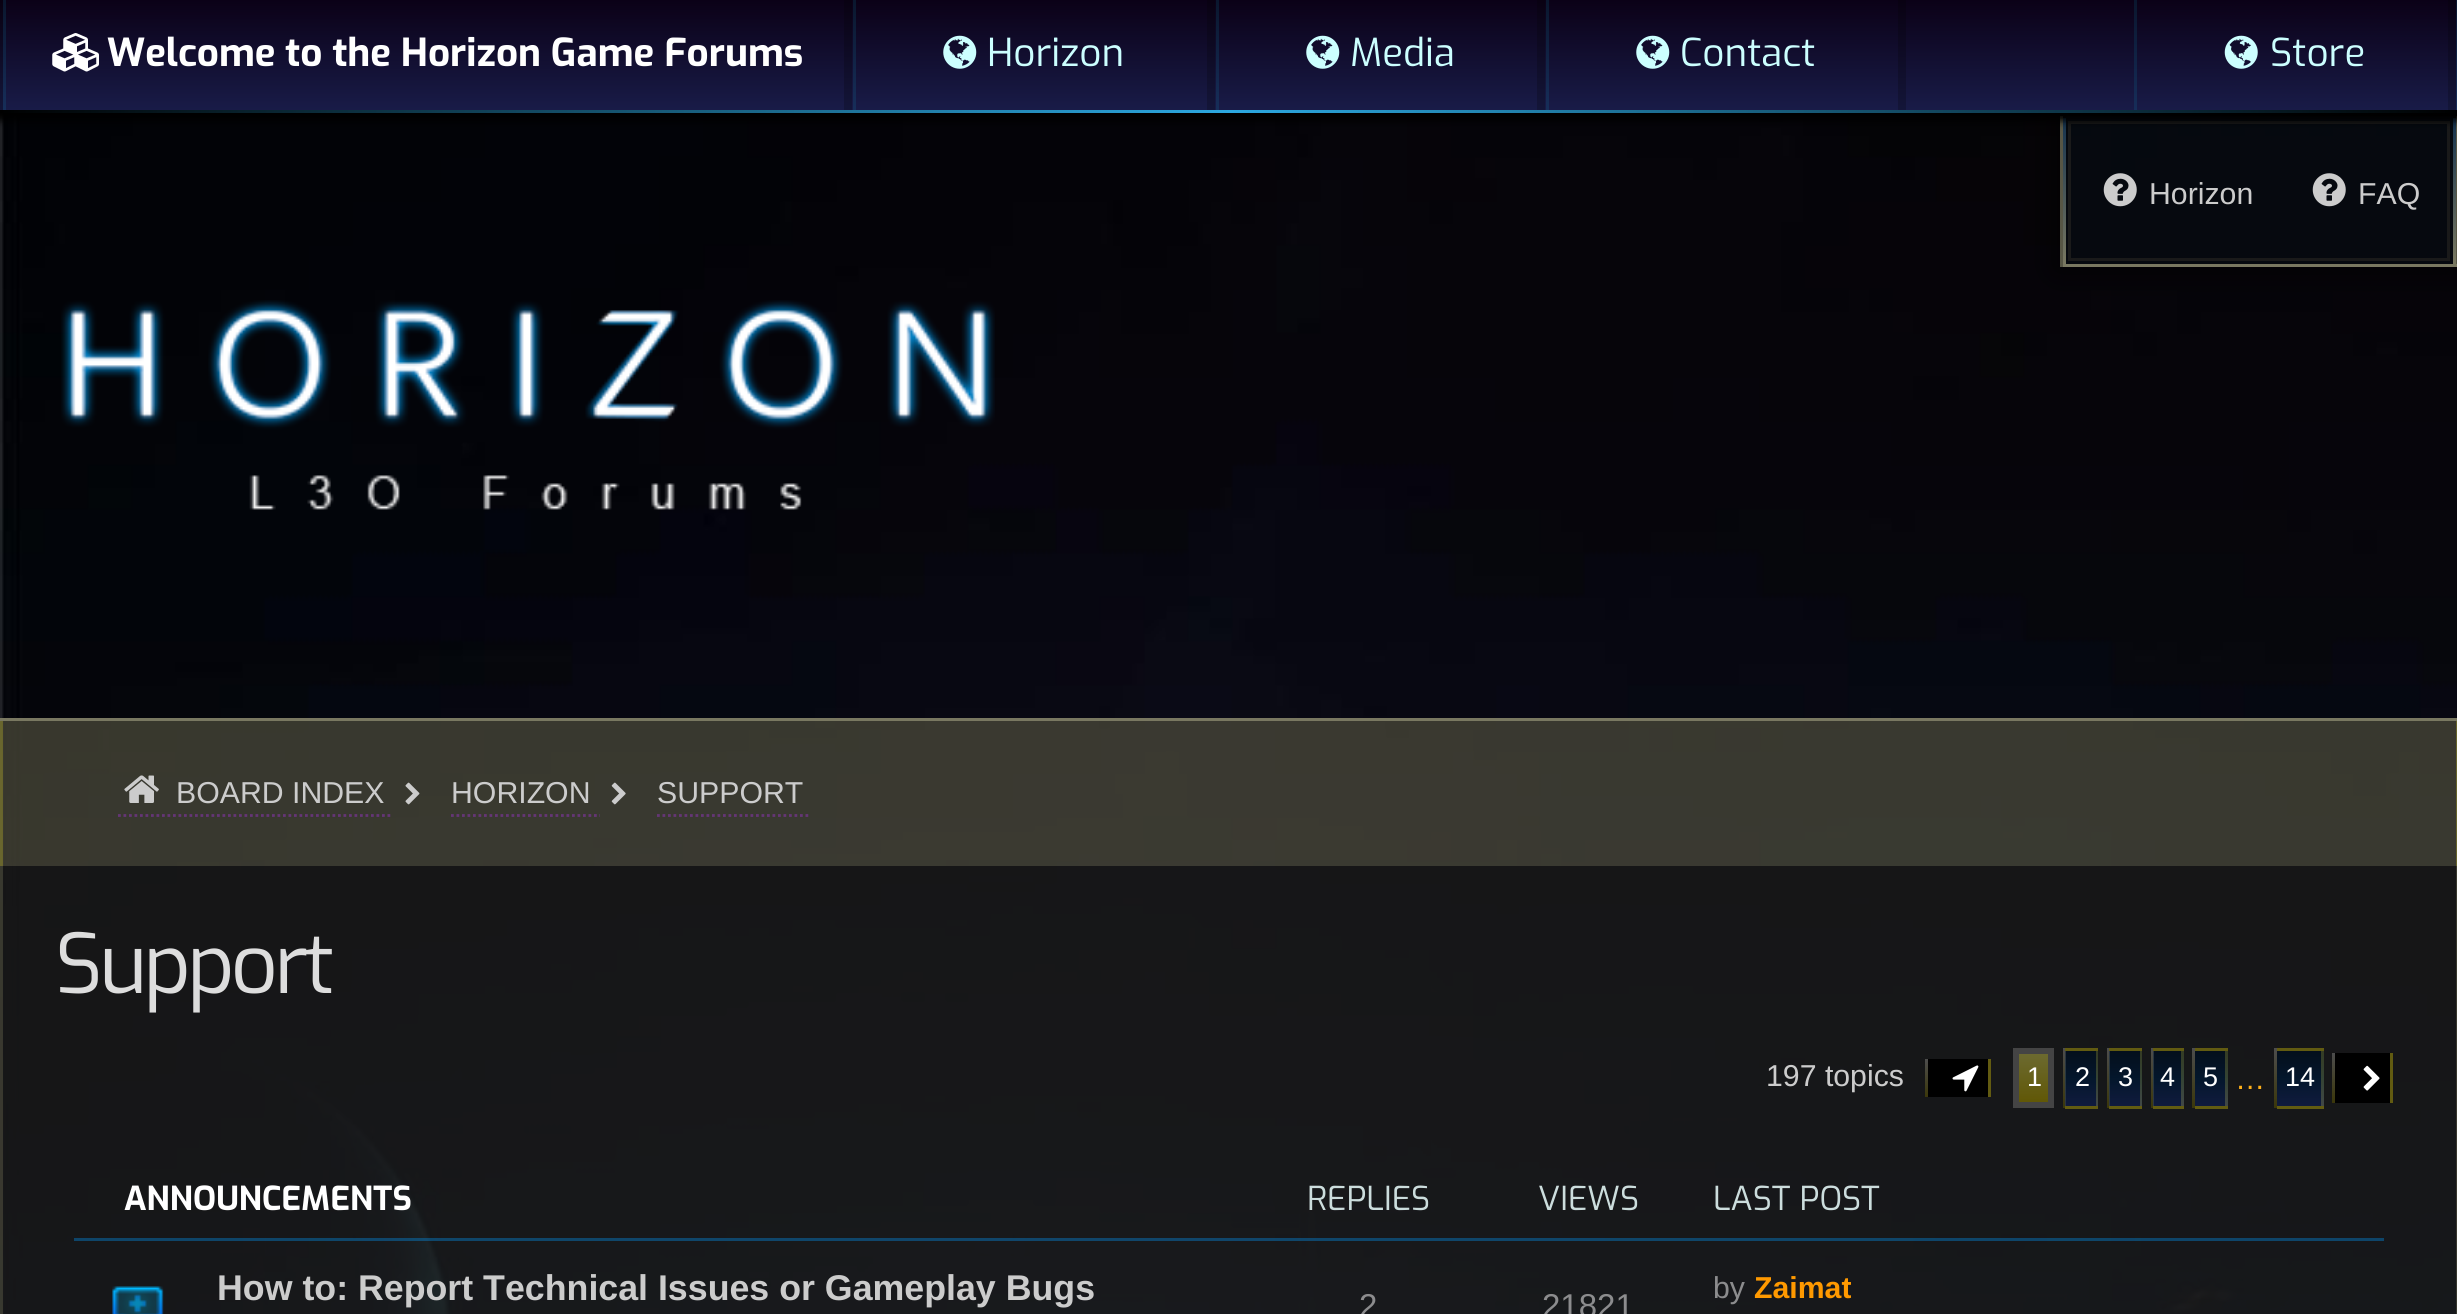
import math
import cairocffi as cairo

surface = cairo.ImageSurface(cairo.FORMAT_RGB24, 2457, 1314)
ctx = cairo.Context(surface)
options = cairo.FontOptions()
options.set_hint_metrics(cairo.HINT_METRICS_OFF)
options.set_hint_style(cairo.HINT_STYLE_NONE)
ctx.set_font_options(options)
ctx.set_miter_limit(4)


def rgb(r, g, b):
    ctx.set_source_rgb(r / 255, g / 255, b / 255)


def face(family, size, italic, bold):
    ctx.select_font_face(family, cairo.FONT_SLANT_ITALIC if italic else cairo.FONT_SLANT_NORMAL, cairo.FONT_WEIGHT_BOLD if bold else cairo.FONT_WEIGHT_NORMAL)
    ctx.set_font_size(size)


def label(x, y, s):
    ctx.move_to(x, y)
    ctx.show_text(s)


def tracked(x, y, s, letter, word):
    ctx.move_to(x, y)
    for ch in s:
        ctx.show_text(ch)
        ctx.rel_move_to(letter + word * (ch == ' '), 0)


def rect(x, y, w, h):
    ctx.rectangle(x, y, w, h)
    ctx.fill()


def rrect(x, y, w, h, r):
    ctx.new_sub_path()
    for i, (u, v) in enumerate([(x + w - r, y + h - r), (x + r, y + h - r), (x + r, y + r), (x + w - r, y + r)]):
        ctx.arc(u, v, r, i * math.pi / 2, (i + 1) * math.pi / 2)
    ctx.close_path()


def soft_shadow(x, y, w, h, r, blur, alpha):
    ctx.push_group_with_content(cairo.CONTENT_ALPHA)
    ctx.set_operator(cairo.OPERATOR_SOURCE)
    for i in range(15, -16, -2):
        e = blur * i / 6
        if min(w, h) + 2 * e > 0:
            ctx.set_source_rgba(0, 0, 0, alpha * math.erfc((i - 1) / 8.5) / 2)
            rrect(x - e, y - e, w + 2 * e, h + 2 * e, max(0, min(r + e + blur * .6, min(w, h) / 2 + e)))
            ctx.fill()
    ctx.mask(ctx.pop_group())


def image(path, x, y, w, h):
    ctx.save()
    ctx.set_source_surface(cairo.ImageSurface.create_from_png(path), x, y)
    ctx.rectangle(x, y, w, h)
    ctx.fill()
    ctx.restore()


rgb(255, 255, 255)
ctx.paint()
image('image0.png', 0, 113, 2457, 1201)
ctx.save()
ctx.set_fill_rule(cairo.FILL_RULE_EVEN_ODD)
ctx.new_path()
ctx.move_to(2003, 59)
ctx.line_to(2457, 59)
ctx.line_to(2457, 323)
ctx.line_to(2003, 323)
ctx.close_path()
ctx.move_to(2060, 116)
ctx.line_to(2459, 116)
ctx.line_to(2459, 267)
ctx.line_to(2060, 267)
ctx.close_path()
ctx.clip()
rgb(0, 0, 0)
soft_shadow(2054, 110, 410, 162, 0, 16.5, 0.6)
ctx.restore()
ctx.set_source_rgba(0.024, 0.043, 0.063, 0.9)
rect(2063, 116, 393, 148)
gradient = cairo.LinearGradient(2064, 118, 2064, 264)
gradient.add_color_stop_rgba(0, 0.078, 0.196, 0.306, 1)
gradient.add_color_stop_rgba(1, 0.475, 0.471, 0.38, 1)
ctx.set_source(gradient)
rect(2063, 118, 3, 146)
gradient = cairo.LinearGradient(2454, 118, 2454, 264)
gradient.add_color_stop_rgba(0, 0.078, 0.196, 0.306, 1)
gradient.add_color_stop_rgba(1, 0.475, 0.471, 0.38, 1)
ctx.set_source(gradient)
rect(2453, 118, 3, 146)
rgb(87, 86, 69)
rect(2456, 116, 1, 151)
rgb(121, 120, 97)
rect(2060, 264, 397, 3)
rgb(87, 86, 69)
rect(2060, 116, 3, 151)
ctx.rectangle(2069.5, 122.5, 379, 137)
rgb(26, 26, 26)
ctx.set_line_width(3)
ctx.stroke()
rgb(0, 0, 0)
soft_shadow(-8, -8, 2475, 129, 0, 4, 1)
gradient = cairo.LinearGradient(1229, 0, 1229, 113)
gradient.add_color_stop_rgba(0, 0.043, 0.004, 0.09, 1)
gradient.add_color_stop_rgba(1, 0.098, 0.11, 0.286, 1)
ctx.set_source(gradient)
rect(6, 0, 2451, 110)
gradient = cairo.LinearGradient(1229, 0, 1229, 113)
gradient.add_color_stop_rgba(0, 0.039, 0.09, 0.18, 1)
gradient.add_color_stop_rgba(1, 0.09, 0.184, 0.357, 1)
ctx.set_source(gradient)
rect(1546, 0, 3, 110)
gradient = cairo.LinearGradient(1229, 0, 1229, 113)
gradient.add_color_stop_rgba(0, 0.035, 0.004, 0.071, 1)
gradient.add_color_stop_rgba(1, 0.078, 0.086, 0.227, 1)
ctx.set_source(gradient)
rect(1898, 0, 8, 110)
gradient = cairo.LinearGradient(1229, 0, 1229, 113)
gradient.add_color_stop_rgba(0, 0.039, 0.09, 0.18, 1)
gradient.add_color_stop_rgba(1, 0.09, 0.184, 0.357, 1)
ctx.set_source(gradient)
rect(1216, 0, 3, 110)
gradient = cairo.LinearGradient(1229, 0, 1229, 113)
gradient.add_color_stop_rgba(0, 0.035, 0.004, 0.071, 1)
gradient.add_color_stop_rgba(1, 0.078, 0.086, 0.227, 1)
ctx.set_source(gradient)
rect(1537, 0, 8, 110)
gradient = cairo.LinearGradient(1229, 0, 1229, 113)
gradient.add_color_stop_rgba(0, 0.039, 0.09, 0.18, 1)
gradient.add_color_stop_rgba(1, 0.09, 0.184, 0.357, 1)
ctx.set_source(gradient)
rect(853, 0, 3, 110)
gradient = cairo.LinearGradient(1229, 0, 1229, 113)
gradient.add_color_stop_rgba(0, 0.035, 0.004, 0.071, 1)
gradient.add_color_stop_rgba(1, 0.078, 0.086, 0.227, 1)
ctx.set_source(gradient)
rect(1207, 0, 8, 110)
gradient = cairo.LinearGradient(1229, 0, 1229, 113)
gradient.add_color_stop_rgba(0, 0.039, 0.09, 0.18, 1)
gradient.add_color_stop_rgba(1, 0.09, 0.184, 0.357, 1)
ctx.set_source(gradient)
rect(3, 0, 3, 110)
gradient = cairo.LinearGradient(1229, 0, 1229, 113)
gradient.add_color_stop_rgba(0, 0.035, 0.004, 0.071, 1)
gradient.add_color_stop_rgba(1, 0.078, 0.086, 0.227, 1)
ctx.set_source(gradient)
rect(844, 0, 8, 110)
rect(0, 0, 3, 110)
gradient = cairo.LinearGradient(0, 111, 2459, 111)
gradient.add_color_stop_rgba(0, 0, 0, 0, 1)
gradient.add_color_stop_rgba(0.5, 0.173, 0.659, 0.878, 1)
gradient.add_color_stop_rgba(1, 0, 0, 0, 1)
ctx.set_source(gradient)
rect(0, 110, 2457, 3)
ctx.set_source_rgba(0, 0.847, 1, 0.1)
rect(2456, 0, 1, 110)
image('image1.png', 52, 33, 47, 39)
face('Exo', 38.5, 0, 1)
rgb(255, 255, 255)
label(107, 66, 'Welcome to the Horizon Game Forums')
image('image2.png', 943, 35, 34, 34)
face('Exo', 38.5, 0, 0)
rgb(204, 255, 255)
label(987, 66, 'Horizon')
image('image2.png', 1306, 35, 34, 34)
label(1350, 66, 'Media')
image('image2.png', 1636, 35, 34, 34)
label(1680, 66, 'Contact')
ctx.set_source_rgba(0, 0, 0, 0.2)
rect(2448, 0, 8, 110)
ctx.set_source_rgba(0, 0.847, 1, 0.1)
rect(2134, 0, 3, 110)
image('image3.png', 2224, 35, 34, 34)
rgb(204, 255, 255)
label(2270, 66, 'Store')
image('image4.png', 2103, 173, 34, 34)
face('Liberation Sans', 30.25, 0, 0)
rgb(204, 204, 204)
label(2149, 204, 'Horizon')
image('image5.png', 2312, 173, 34, 34)
label(2358, 204, 'FAQ')
image('image6.png', 61, 300, 934, 210)
ctx.set_source_rgba(0.31, 0.306, 0.239, 0.7)
rect(0, 721, 2456, 145)
ctx.set_source_rgba(0.576, 0.553, 0.149, 0.5)
rect(0, 721, 3, 145)
rgb(102, 99, 43)
rect(2456, 721, 1, 145)
rgb(121, 120, 97)
rect(0, 718, 2457, 3)
image('image7.png', 124, 775, 35, 28)
rgb(204, 204, 204)
label(176, 803, 'BOARD INDEX')
ctx.save()
ctx.rectangle(110, 748, 283, 88)
ctx.clip()
ctx.new_path()
ctx.move_to(118, 815.5)
ctx.line_to(401.5, 815.5)
rgb(101, 53, 118)
ctx.set_line_width(2.8)
ctx.set_dash([2.75, 2.75])
ctx.stroke()
ctx.restore()
image('image8.png', 405, 782, 15, 23)
label(451, 803, 'HORIZON')
ctx.save()
ctx.rectangle(443, 748, 157, 88)
ctx.clip()
ctx.new_path()
ctx.move_to(451, 815.5)
ctx.line_to(608, 815.5)
rgb(101, 53, 118)
ctx.set_line_width(2.8)
ctx.set_dash([2.75, 2.75])
ctx.stroke()
ctx.restore()
image('image9.png', 611, 782, 15, 23)
label(657, 803, 'SUPPORT')
ctx.save()
ctx.rectangle(649, 748, 162, 88)
ctx.clip()
ctx.new_path()
ctx.move_to(657, 815.5)
ctx.line_to(819.5, 815.5)
rgb(101, 53, 118)
ctx.set_line_width(2.8)
ctx.set_dash([2.75, 2.75])
ctx.stroke()
ctx.restore()
ctx.set_source_rgba(0.094, 0.094, 0.094, 0.9)
rect(0, 866, 2457, 448)
gradient = cairo.LinearGradient(1.4, 866, 1.4, 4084)
gradient.add_color_stop_rgba(0, 0.31, 0.306, 0.239, 0.6)
gradient.add_color_stop_rgba(1, 0.31, 0.306, 0.239, 0.5)
ctx.set_source(gradient)
rect(0, 866, 3, 448)
gradient = cairo.LinearGradient(2457, 866, 2457, 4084)
gradient.add_color_stop_rgba(0, 0.31, 0.306, 0.239, 0.6)
gradient.add_color_stop_rgba(1, 0.31, 0.306, 0.239, 0.5)
ctx.set_source(gradient)
rect(2456, 866, 1, 448)
face('Exo', 82.5, 0, 0)
rgb(221, 221, 221)
tracked(55, 993, 'Support', -4, 0)
face('Liberation Sans', 30.25, 0, 0)
rgb(204, 204, 204)
label(1766, 1086, '197 topics')
rgb(0, 0, 0)
rect(1928, 1059, 60, 38)
gradient = cairo.LinearGradient(1926, 1059, 1926, 1097)
gradient.add_color_stop_rgba(0, 0.302, 0.302, 0.302, 1)
gradient.add_color_stop_rgba(1, 0.231, 0.216, 0.039, 1)
ctx.set_source(gradient)
rect(1925, 1059, 3, 38)
rgb(98, 91, 17)
rect(1988, 1059, 3, 38)
image('image10.png', 1952, 1065, 27, 27)
rgb(0, 0, 0)
rect(2019, 1054, 29, 48)
gradient = cairo.LinearGradient(2034, 1053, 2034, 1103)
gradient.add_color_stop_rgba(0, 0.847, 0.831, 0.38, 0.5)
gradient.add_color_stop_rgba(1, 0.757, 0.682, 0.043, 0.5)
ctx.set_source(gradient)
rect(2019, 1054, 29, 48)
ctx.rectangle(2016, 1051, 35, 54)
rgb(68, 68, 68)
ctx.set_line_width(6)
ctx.stroke()
face('Liberation Sans', 27, 0, 0)
rgb(255, 255, 255)
label(2027, 1086, '1')
rgb(0, 0, 0)
rect(2066, 1051, 30, 55)
gradient = cairo.LinearGradient(2064, 1048, 2064, 1108)
gradient.add_color_stop_rgba(0, 0.302, 0.302, 0.302, 1)
gradient.add_color_stop_rgba(1, 0.231, 0.216, 0.039, 1)
ctx.set_source(gradient)
rect(2063, 1048, 3, 60)
rgb(98, 91, 17)
rect(2096, 1048, 2, 60)
gradient = cairo.LinearGradient(2082, 1048, 2082, 1108)
gradient.add_color_stop_rgba(0, 0.031, 0.11, 0.204, 0.5)
gradient.add_color_stop_rgba(0.5, 0.027, 0.176, 0.341, 0.5)
gradient.add_color_stop_rgba(1, 0.133, 0.212, 0.498, 0.5)
ctx.set_source(gradient)
rect(2065, 1051, 33, 55)
rgb(98, 91, 17)
rect(2065, 1048, 33, 3)
rect(2065, 1106, 33, 3)
rgb(255, 255, 255)
label(2075, 1086, '2')
rgb(0, 0, 0)
rect(2110, 1051, 30, 55)
gradient = cairo.LinearGradient(2108, 1048, 2108, 1108)
gradient.add_color_stop_rgba(0, 0.302, 0.302, 0.302, 1)
gradient.add_color_stop_rgba(1, 0.231, 0.216, 0.039, 1)
ctx.set_source(gradient)
rect(2107, 1048, 3, 60)
rgb(98, 91, 17)
rect(2140, 1048, 2, 60)
gradient = cairo.LinearGradient(2126, 1048, 2126, 1108)
gradient.add_color_stop_rgba(0, 0.031, 0.11, 0.204, 0.5)
gradient.add_color_stop_rgba(0.5, 0.027, 0.176, 0.341, 0.5)
gradient.add_color_stop_rgba(1, 0.133, 0.212, 0.498, 0.5)
ctx.set_source(gradient)
rect(2109, 1051, 33, 55)
rgb(98, 91, 17)
rect(2109, 1048, 33, 3)
rect(2109, 1106, 33, 3)
rgb(255, 255, 255)
label(2118, 1086, '3')
rgb(0, 0, 0)
rect(2154, 1051, 27, 55)
gradient = cairo.LinearGradient(2152, 1048, 2152, 1108)
gradient.add_color_stop_rgba(0, 0.302, 0.302, 0.302, 1)
gradient.add_color_stop_rgba(1, 0.231, 0.216, 0.039, 1)
ctx.set_source(gradient)
rect(2151, 1048, 3, 60)
rgb(98, 91, 17)
rect(2181, 1048, 3, 60)
gradient = cairo.LinearGradient(2168, 1048, 2168, 1108)
gradient.add_color_stop_rgba(0, 0.031, 0.11, 0.204, 0.5)
gradient.add_color_stop_rgba(0.5, 0.027, 0.176, 0.341, 0.5)
gradient.add_color_stop_rgba(1, 0.133, 0.212, 0.498, 0.5)
ctx.set_source(gradient)
rect(2153, 1051, 31, 55)
rgb(98, 91, 17)
rect(2153, 1048, 31, 3)
rect(2153, 1106, 31, 3)
rgb(255, 255, 255)
label(2160, 1086, '4')
rgb(0, 0, 0)
rect(2195, 1051, 30, 55)
gradient = cairo.LinearGradient(2193, 1048, 2193, 1108)
gradient.add_color_stop_rgba(0, 0.302, 0.302, 0.302, 1)
gradient.add_color_stop_rgba(1, 0.231, 0.216, 0.039, 1)
ctx.set_source(gradient)
rect(2192, 1048, 3, 60)
rgb(98, 91, 17)
rect(2225, 1048, 3, 60)
gradient = cairo.LinearGradient(2211, 1048, 2211, 1108)
gradient.add_color_stop_rgba(0, 0.031, 0.11, 0.204, 0.5)
gradient.add_color_stop_rgba(0.5, 0.027, 0.176, 0.341, 0.5)
gradient.add_color_stop_rgba(1, 0.133, 0.212, 0.498, 0.5)
ctx.set_source(gradient)
rect(2195, 1051, 33, 55)
rgb(98, 91, 17)
rect(2195, 1048, 33, 3)
rect(2195, 1106, 33, 3)
rgb(255, 255, 255)
label(2203, 1086, '5')
rgb(0, 0, 0)
rect(2277, 1051, 44, 55)
gradient = cairo.LinearGradient(2276, 1048, 2276, 1108)
gradient.add_color_stop_rgba(0, 0.302, 0.302, 0.302, 1)
gradient.add_color_stop_rgba(1, 0.231, 0.216, 0.039, 1)
ctx.set_source(gradient)
rect(2274, 1048, 3, 60)
rgb(98, 91, 17)
rect(2321, 1048, 3, 60)
gradient = cairo.LinearGradient(2300, 1048, 2300, 1108)
gradient.add_color_stop_rgba(0, 0.031, 0.11, 0.204, 0.5)
gradient.add_color_stop_rgba(0.5, 0.027, 0.176, 0.341, 0.5)
gradient.add_color_stop_rgba(1, 0.133, 0.212, 0.498, 0.5)
ctx.set_source(gradient)
rect(2277, 1051, 47, 55)
rgb(98, 91, 17)
rect(2277, 1048, 47, 3)
rect(2277, 1106, 47, 3)
rgb(255, 255, 255)
label(2285, 1086, '14')
rgb(0, 0, 0)
rect(2335, 1053, 55, 50)
gradient = cairo.LinearGradient(2333, 1053, 2333, 1103)
gradient.add_color_stop_rgba(0, 0.302, 0.302, 0.302, 1)
gradient.add_color_stop_rgba(1, 0.231, 0.216, 0.039, 1)
ctx.set_source(gradient)
rect(2332, 1053, 3, 50)
rgb(98, 91, 17)
rect(2390, 1053, 3, 50)
image('image11.png', 2363, 1065, 17, 26)
face('Liberation Sans', 30.25, 0, 0)
rgb(255, 176, 25)
label(2235, 1089, '…')
ctx.set_source_rgba(0, 0.612, 1, 0.35)
rect(74, 1238, 2310, 3)
face('Exo', 33, 0, 1)
rgb(255, 255, 255)
label(124, 1210, 'ANNOUNCEMENTS')
face('Exo', 33, 0, 0)
rgb(204, 221, 221)
label(1307, 1210, 'REPLIES')
label(1538, 1210, 'VIEWS')
label(1713, 1210, 'LAST POST')
image('image12.png', 112, 1286, 52, 28)
face('Liberation Sans', 35.75, 0, 1)
rgb(204, 204, 204)
label(217, 1300, 'How to: Report Technical Issues or Gameplay Bugs')
face('Liberation Sans', 33, 0, 0)
rgb(140, 140, 142)
label(1359, 1317, '2')
label(1542, 1317, '21821')
face('Liberation Sans', 30.25, 0, 0)
label(1713, 1298, 'by')
face('Liberation Sans', 30.25, 0, 1)
rgb(255, 153, 0)
label(1754, 1298, 'Zaimat')
surface.write_to_png('render.png')
